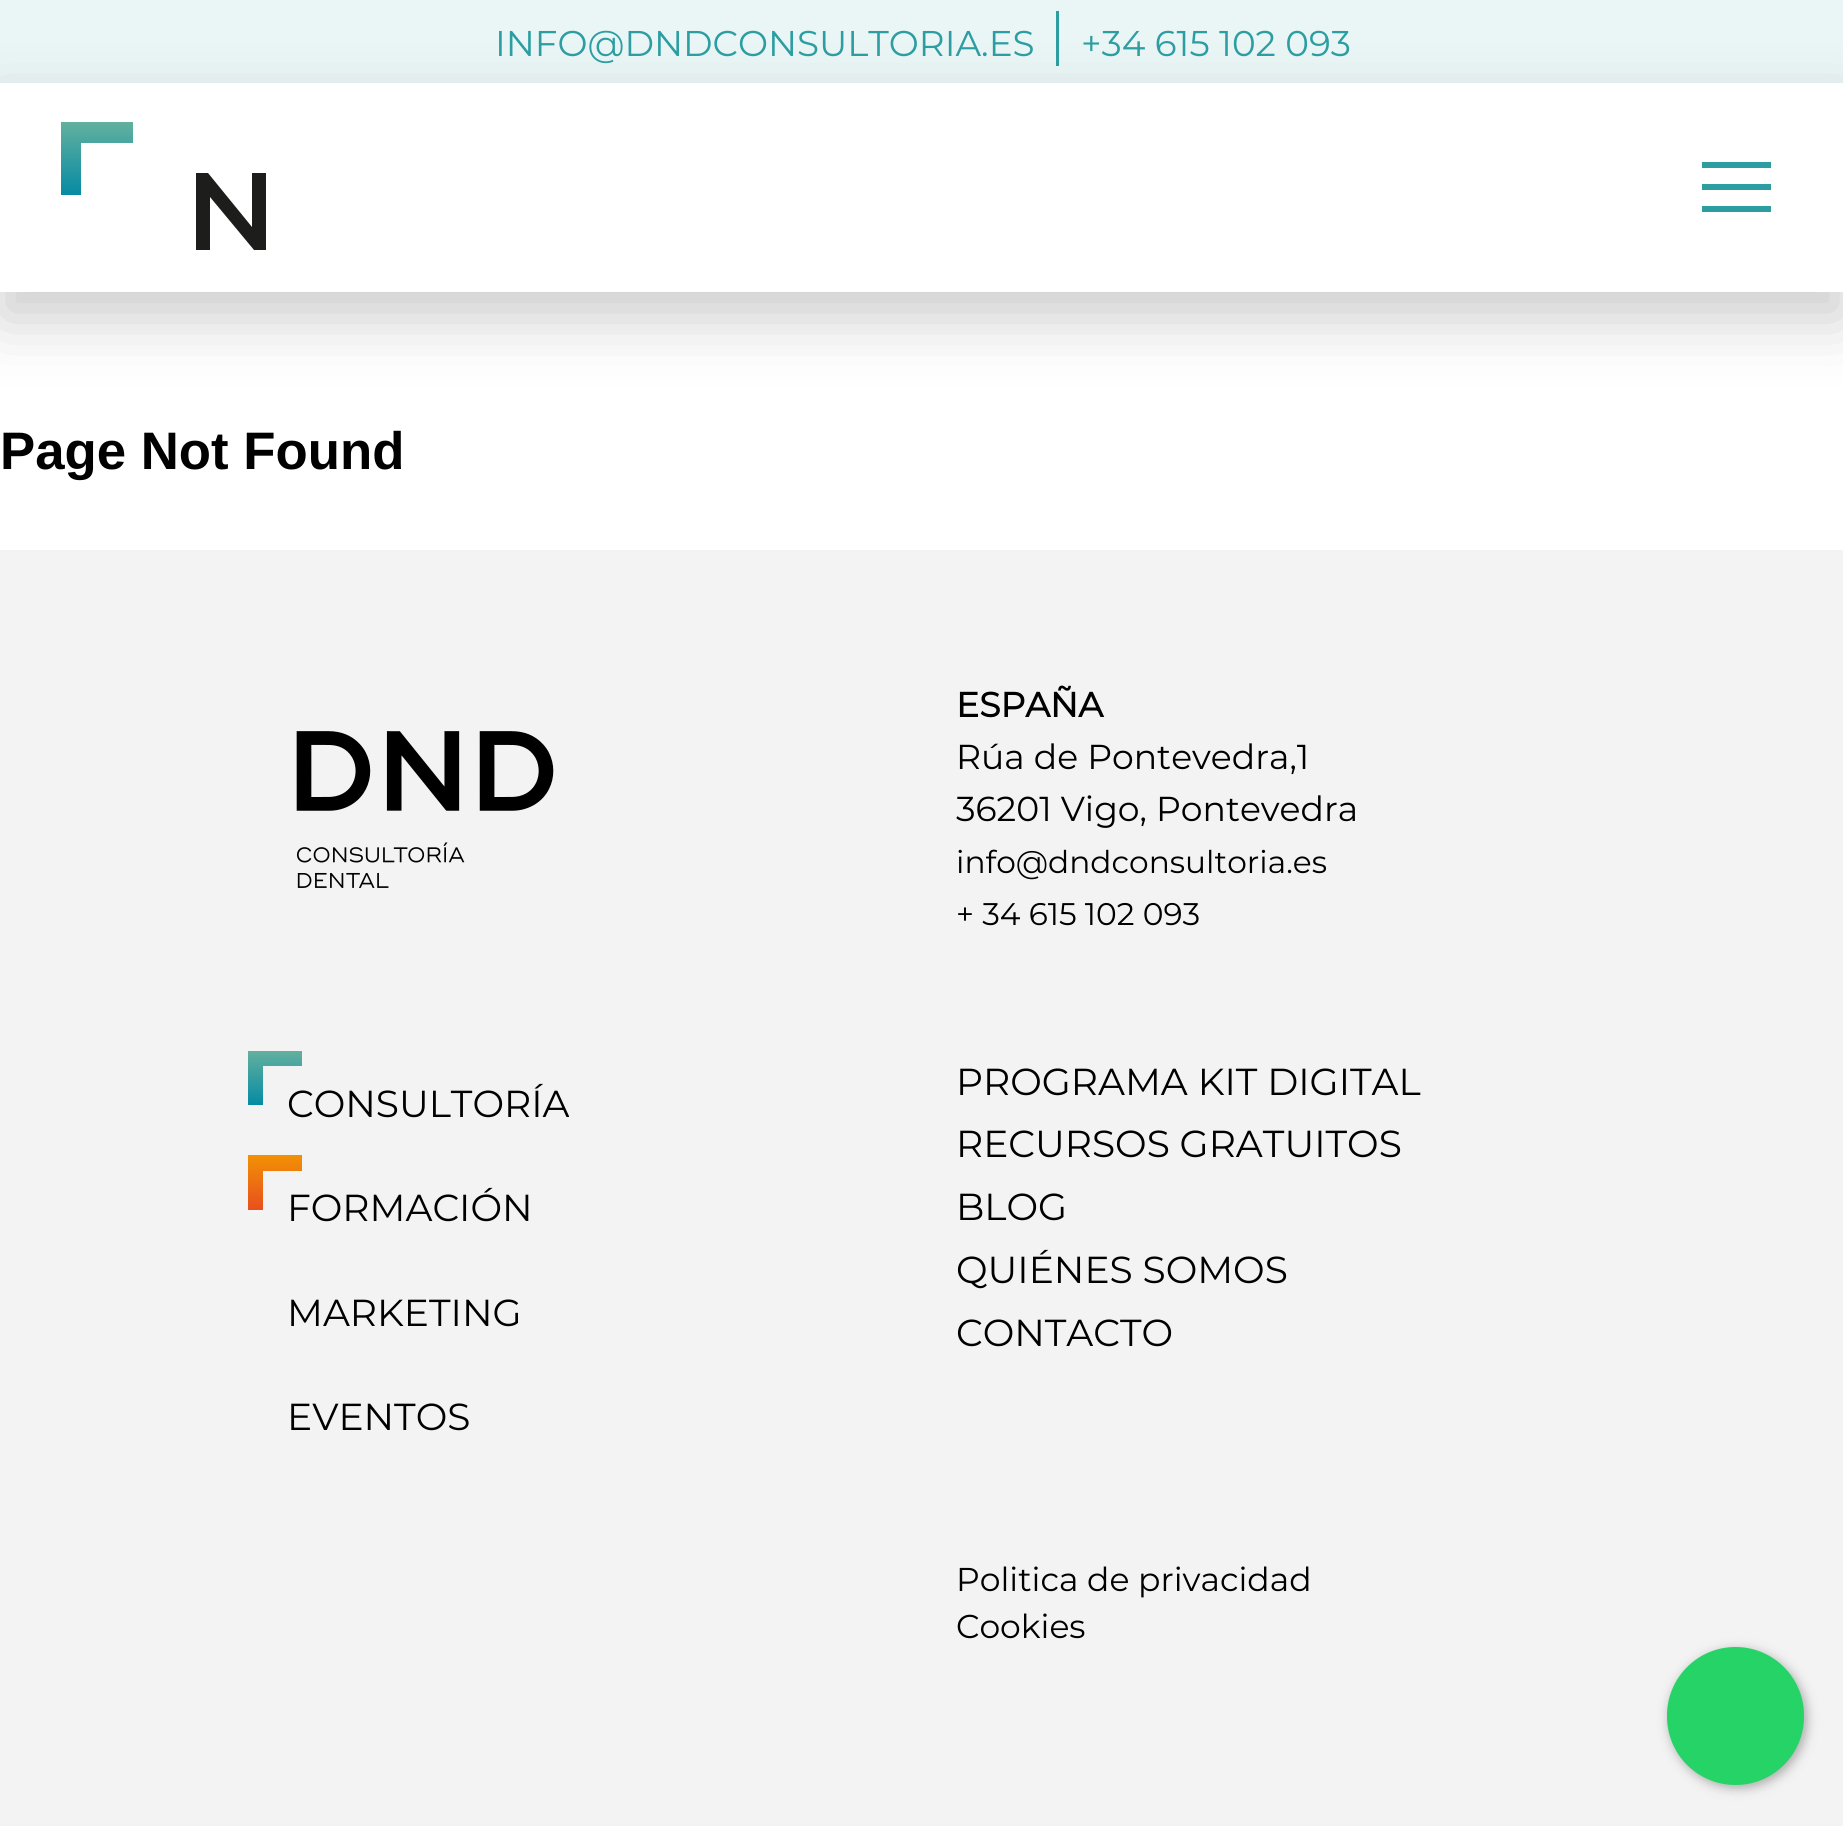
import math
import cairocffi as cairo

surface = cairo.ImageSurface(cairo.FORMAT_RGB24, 1843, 1826)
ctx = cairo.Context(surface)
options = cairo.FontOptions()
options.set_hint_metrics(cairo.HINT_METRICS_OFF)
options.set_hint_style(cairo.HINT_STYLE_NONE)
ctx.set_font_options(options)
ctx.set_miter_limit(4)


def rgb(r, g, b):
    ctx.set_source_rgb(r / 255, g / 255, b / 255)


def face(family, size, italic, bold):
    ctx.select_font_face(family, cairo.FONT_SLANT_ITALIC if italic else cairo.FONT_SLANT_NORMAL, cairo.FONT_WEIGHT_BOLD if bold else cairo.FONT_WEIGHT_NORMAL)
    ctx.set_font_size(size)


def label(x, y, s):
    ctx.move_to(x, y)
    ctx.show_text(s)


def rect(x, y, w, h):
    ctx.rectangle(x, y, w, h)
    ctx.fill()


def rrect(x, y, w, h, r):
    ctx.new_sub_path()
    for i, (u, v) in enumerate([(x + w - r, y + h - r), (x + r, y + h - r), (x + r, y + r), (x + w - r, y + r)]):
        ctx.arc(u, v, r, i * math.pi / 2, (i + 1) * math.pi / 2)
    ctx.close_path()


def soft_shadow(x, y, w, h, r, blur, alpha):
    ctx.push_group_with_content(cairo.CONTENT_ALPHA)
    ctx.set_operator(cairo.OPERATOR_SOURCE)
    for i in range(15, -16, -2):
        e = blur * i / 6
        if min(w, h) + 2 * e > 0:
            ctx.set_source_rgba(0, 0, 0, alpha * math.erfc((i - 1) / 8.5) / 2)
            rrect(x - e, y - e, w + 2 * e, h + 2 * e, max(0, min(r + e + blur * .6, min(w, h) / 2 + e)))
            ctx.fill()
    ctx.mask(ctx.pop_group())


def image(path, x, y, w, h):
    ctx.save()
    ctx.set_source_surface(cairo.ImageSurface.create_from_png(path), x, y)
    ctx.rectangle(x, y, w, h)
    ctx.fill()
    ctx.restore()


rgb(255, 255, 255)
ctx.paint()
rgb(234, 245, 245)
rect(0, 0, 1843, 83)
rgb(44, 158, 162)
rect(1056, 11, 3, 55)
rgb(0, 0, 0)
soft_shadow(0, 110, 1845, 209, 0, 31.5, 0.2)
rgb(255, 255, 255)
rect(0, 83, 1843, 209)
rgb(29, 29, 27)
ctx.new_path()
ctx.move_to(266, 250)
ctx.line_to(254, 250)
ctx.line_to(210, 197)
ctx.line_to(210, 250)
ctx.line_to(196, 250)
ctx.line_to(196, 173)
ctx.line_to(208, 173)
ctx.line_to(252, 227)
ctx.line_to(252, 173)
ctx.line_to(266, 173)
ctx.close_path()
ctx.fill()
gradient = cairo.LinearGradient(97, 195, 97, 122)
gradient.add_color_stop_rgba(0, 0.02, 0.545, 0.643, 1)
gradient.add_color_stop_rgba(1, 0.388, 0.69, 0.62, 1)
ctx.set_source(gradient)
ctx.new_path()
ctx.move_to(61, 122)
ctx.line_to(61, 195)
ctx.line_to(81, 195)
ctx.line_to(81, 143)
ctx.line_to(133, 143)
ctx.line_to(133, 122)
ctx.close_path()
ctx.fill()
rgb(44, 158, 162)
rect(1702, 184, 69, 6)
rect(1702, 162, 69, 6)
rect(1702, 206, 69, 6)
face('Montserrat', 35.75, 0, 0)
label(495, 56, 'INFO@DNDCONSULTORIA.ES')
label(1081, 56, '+34 615 102 093')
face('Liberation Sans', 52.75, 0, 1)
rgb(0, 0, 0)
label(0, 469, 'Page Not Found')
rgb(243, 243, 243)
rect(0, 550, 1843, 1276)
image('image0.png', 296, 731, 258, 157)
face('Montserrat', 34.6, 0, 1)
rgb(0, 0, 0)
label(956, 717, 'ESPAÑA')
face('Montserrat', 34.6, 0, 0)
label(956, 769, 'Rúa de Pontevedra,1')
label(956, 821, '36201 Vigo, Pontevedra')
face('Montserrat', 31.25, 0, 0)
label(956, 873, 'info@dndconsultoria.es')
label(956, 925, '+ 34 615 102 093')
gradient = cairo.LinearGradient(275, 1105, 275, 1051)
gradient.add_color_stop_rgba(0, 0.02, 0.545, 0.643, 1)
gradient.add_color_stop_rgba(1, 0.388, 0.69, 0.62, 1)
ctx.set_source(gradient)
ctx.new_path()
ctx.move_to(248, 1051)
ctx.line_to(248, 1105)
ctx.line_to(263, 1105)
ctx.line_to(263, 1066)
ctx.line_to(302, 1066)
ctx.line_to(302, 1051)
ctx.close_path()
ctx.fill()
face('Montserrat', 37.6, 0, 0)
rgb(0, 0, 0)
label(287, 1117, 'CONSULTORÍA')
gradient = cairo.LinearGradient(275, 1210, 275, 1155)
gradient.add_color_stop_rgba(0, 0.91, 0.31, 0.114, 1)
gradient.add_color_stop_rgba(1, 0.949, 0.569, 0.02, 1)
ctx.set_source(gradient)
ctx.new_path()
ctx.move_to(302, 1155)
ctx.line_to(248, 1155)
ctx.line_to(248, 1210)
ctx.line_to(263, 1210)
ctx.line_to(263, 1171)
ctx.line_to(302, 1171)
ctx.close_path()
ctx.fill()
rgb(0, 0, 0)
label(287, 1221, 'FORMACIÓN')
label(287, 1326, 'MARKETING')
label(287, 1430, 'EVENTOS')
label(956, 1095, 'PROGRAMA KIT DIGITAL')
label(956, 1157, 'RECURSOS GRATUITOS')
label(956, 1220, 'BLOG')
label(956, 1283, 'QUIÉNES SOMOS')
label(956, 1346, 'CONTACTO')
face('Montserrat', 33, 0, 0)
label(956, 1591, 'Politica de privacidad')
label(956, 1638, 'Cookies')
rgb(60, 60, 60)
soft_shadow(1669, 1650, 138, 138, 69, 5.5, 0.4)
rgb(37, 211, 102)
rrect(1667, 1647, 137, 138, 68.5)
ctx.fill()
surface.write_to_png('render.png')
